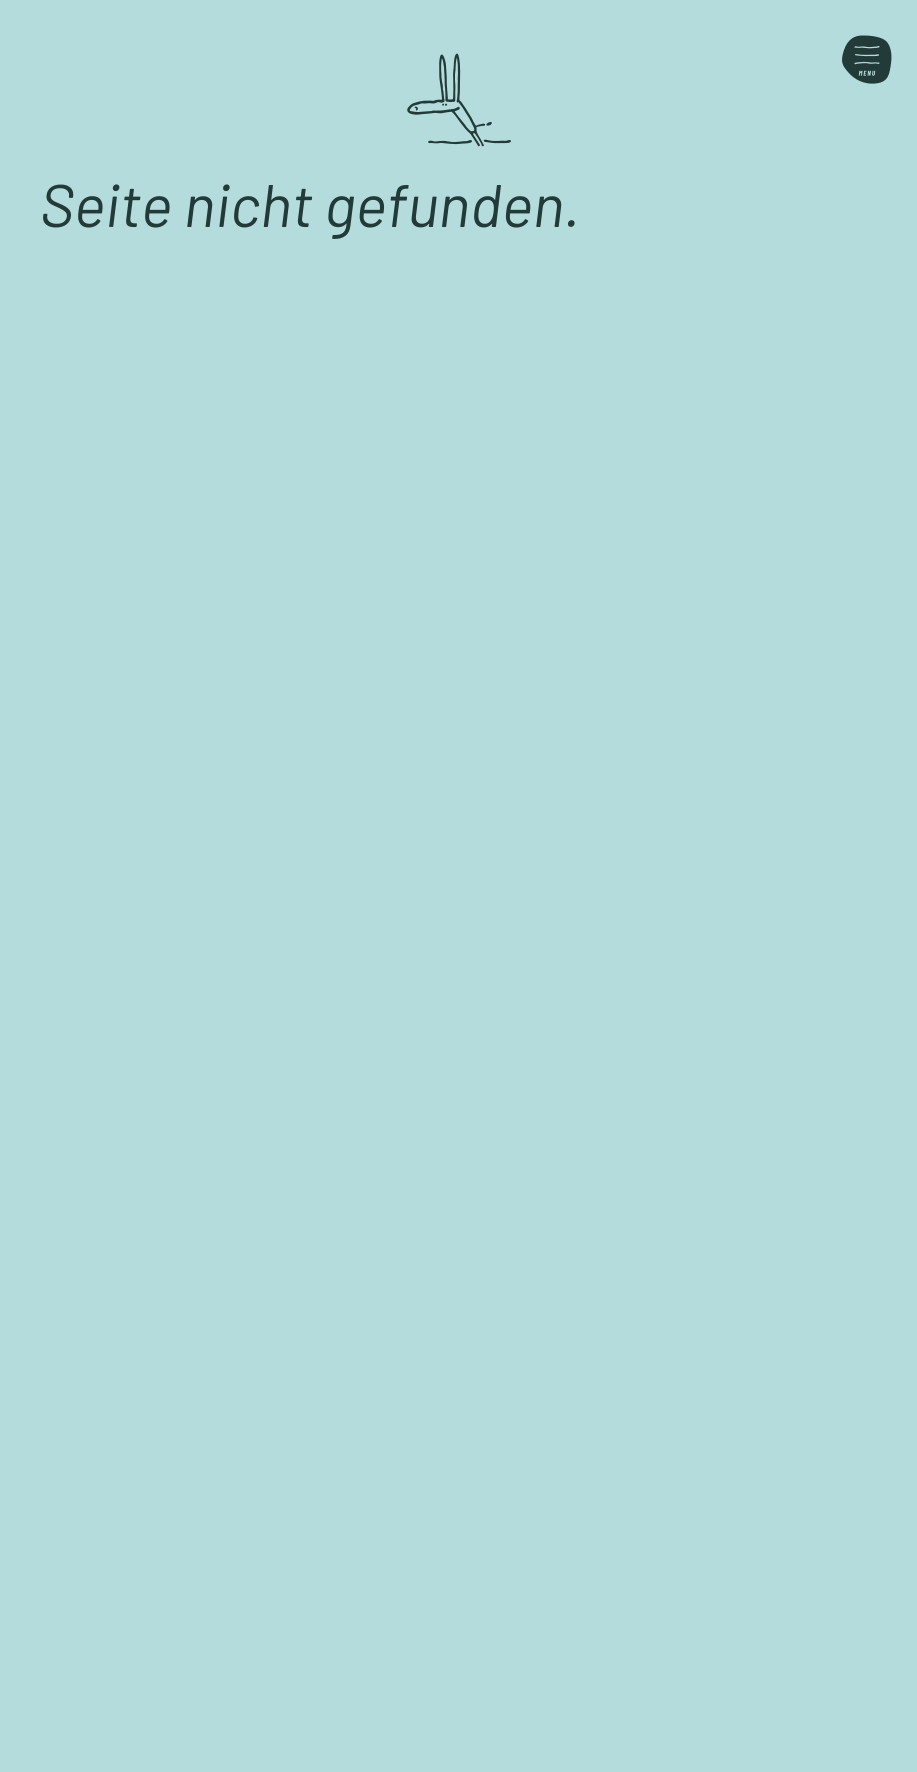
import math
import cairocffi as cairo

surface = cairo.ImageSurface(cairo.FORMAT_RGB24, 917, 1772)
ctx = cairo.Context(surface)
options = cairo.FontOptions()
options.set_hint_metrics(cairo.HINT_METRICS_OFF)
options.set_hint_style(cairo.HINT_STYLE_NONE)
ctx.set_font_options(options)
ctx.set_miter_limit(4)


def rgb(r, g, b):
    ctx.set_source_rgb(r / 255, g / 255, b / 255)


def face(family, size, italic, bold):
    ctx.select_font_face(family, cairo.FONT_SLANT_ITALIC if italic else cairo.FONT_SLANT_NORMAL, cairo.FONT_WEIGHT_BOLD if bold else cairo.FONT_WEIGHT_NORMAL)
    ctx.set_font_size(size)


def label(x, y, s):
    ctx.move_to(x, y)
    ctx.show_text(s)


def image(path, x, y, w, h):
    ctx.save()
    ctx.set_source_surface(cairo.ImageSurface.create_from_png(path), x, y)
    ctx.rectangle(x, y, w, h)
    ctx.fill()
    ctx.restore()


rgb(181, 220, 220)
ctx.paint()
image('image0.png', 407, 53, 104, 94)
image('image1.png', 842, 35, 50, 49)
face('Barlow', 60, 1, 0)
rgb(34, 59, 56)
label(40, 227, 'Seite nicht gefunden.')
surface.write_to_png('render.png')
